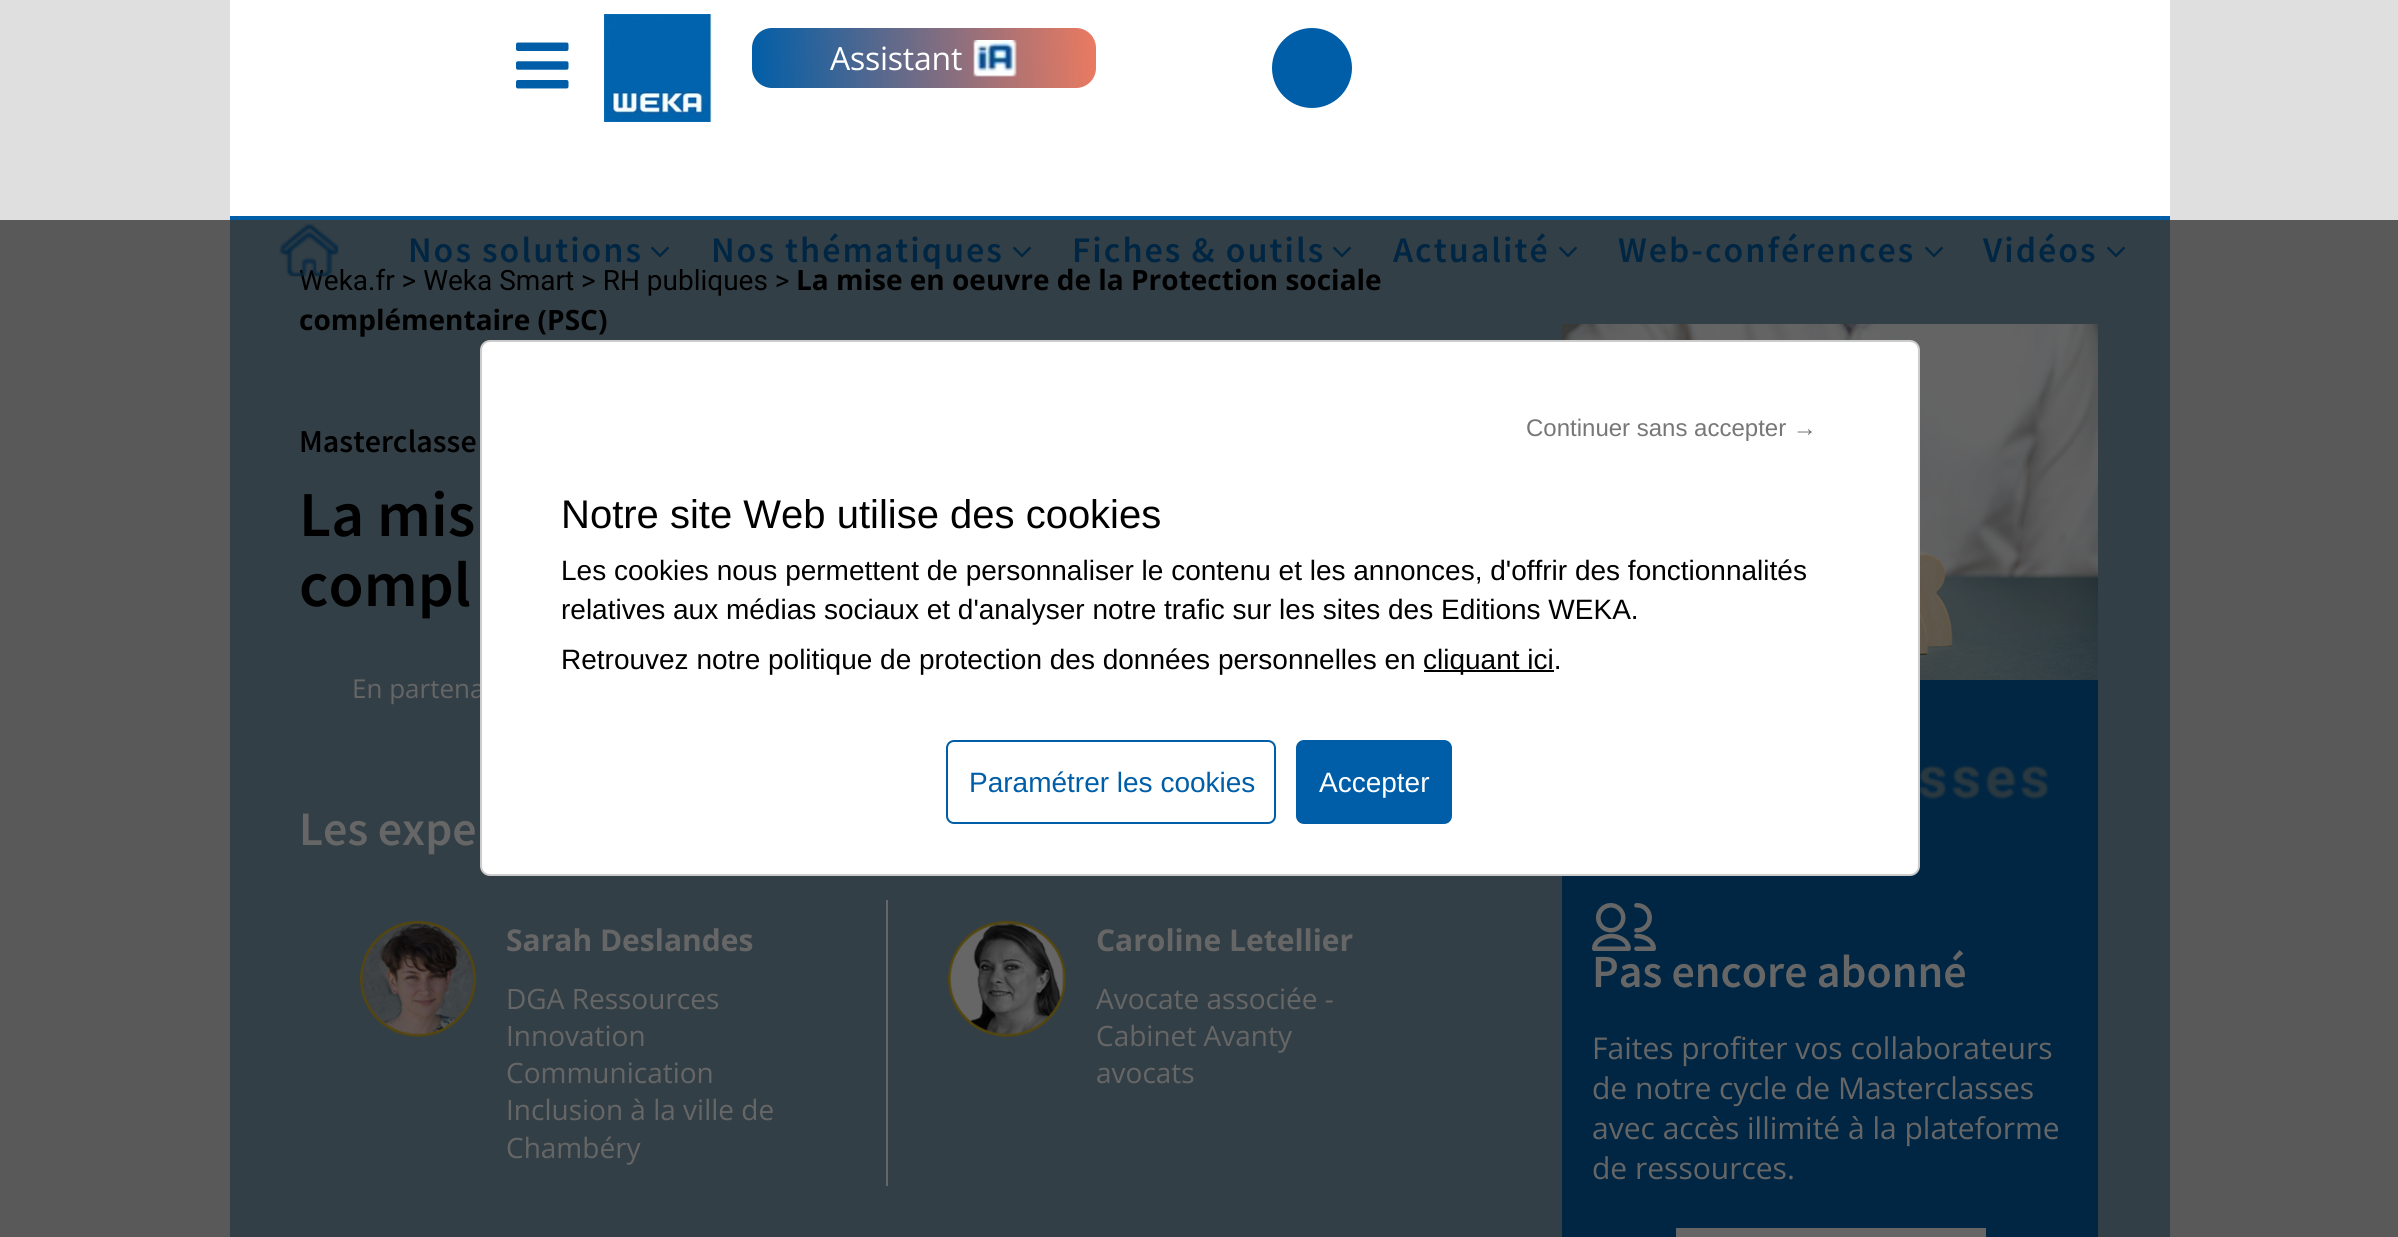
import math
import cairocffi as cairo

surface = cairo.ImageSurface(cairo.FORMAT_RGB24, 2398, 1237)
ctx = cairo.Context(surface)
options = cairo.FontOptions()
options.set_hint_metrics(cairo.HINT_METRICS_OFF)
options.set_hint_style(cairo.HINT_STYLE_NONE)
ctx.set_font_options(options)
ctx.set_miter_limit(4)


def rgb(r, g, b):
    ctx.set_source_rgb(r / 255, g / 255, b / 255)


def face(family, size, italic, bold):
    ctx.select_font_face(family, cairo.FONT_SLANT_ITALIC if italic else cairo.FONT_SLANT_NORMAL, cairo.FONT_WEIGHT_BOLD if bold else cairo.FONT_WEIGHT_NORMAL)
    ctx.set_font_size(size)


def label(x, y, s):
    ctx.move_to(x, y)
    ctx.show_text(s)


def tracked(x, y, s, letter, word):
    ctx.move_to(x, y)
    for ch in s:
        ctx.show_text(ch)
        ctx.rel_move_to(letter + word * (ch == ' '), 0)


def rect(x, y, w, h):
    ctx.rectangle(x, y, w, h)
    ctx.fill()


def rrect(x, y, w, h, r):
    ctx.new_sub_path()
    for i, (u, v) in enumerate([(x + w - r, y + h - r), (x + r, y + h - r), (x + r, y + r), (x + w - r, y + r)]):
        ctx.arc(u, v, r, i * math.pi / 2, (i + 1) * math.pi / 2)
    ctx.close_path()


def image(path, x, y, w, h):
    ctx.save()
    ctx.set_source_surface(cairo.ImageSurface.create_from_png(path), x, y)
    ctx.rectangle(x, y, w, h)
    ctx.fill()
    ctx.restore()


rgb(223, 223, 223)
ctx.paint()
rgb(89, 89, 89)
rect(0, 220, 2398, 1017)
rgb(255, 255, 255)
rect(230, 0, 1940, 216)
rgb(0, 94, 168)
rect(230, 216, 1940, 4)
image('image0.png', 516, 42, 53, 47)
image('image1.png', 604, 14, 108, 108)
gradient = cairo.LinearGradient(1097, 49, 751, 67)
gradient.add_color_stop_rgba(0, 0.922, 0.478, 0.38, 1)
gradient.add_color_stop_rgba(1, 0, 0.369, 0.659, 1)
ctx.set_source(gradient)
rrect(752, 28, 344, 60, 20)
ctx.fill()
face('Open Sans', 32, 0, 0)
rgb(255, 255, 255)
tracked(830, 70, 'Assistant', -0.25, 0)
image('image2.png', 973, 40, 44, 37)
rgb(0, 94, 168)
ctx.arc(1312, 68, 40, 0, 2 * math.pi)
ctx.fill()
rgb(51, 63, 70)
rect(230, 220, 1940, 1017)
face('Roboto', 28, 0, 0)
rgb(0, 0, 0)
label(299, 290, 'Weka.fr > Weka Smart > RH publiques >')
image('image3.png', 279, 223, 60, 54)
face('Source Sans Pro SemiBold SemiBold', 36, 0, 0)
rgb(0, 38, 67)
tracked(408, 262, 'Nos solutions', 2, 0)
image('image4.png', 651, 246, 18, 12)
tracked(711, 262, 'Nos thématiques', 2, 0)
image('image4.png', 1013, 246, 18, 12)
tracked(1072, 262, 'Fiches & outils', 2, 0)
image('image4.png', 1333, 246, 18, 12)
tracked(1393, 262, 'Actualité', 2, 0)
image('image4.png', 1559, 246, 18, 12)
tracked(1618, 262, 'Web-conférences', 2, 0)
image('image5.png', 1925, 246, 18, 12)
tracked(1983, 262, 'Vidéos', 2, 0)
image('image4.png', 2107, 246, 18, 12)
face('Open Sans', 28, 0, 1)
rgb(0, 0, 0)
label(796, 290, 'La mise en oeuvre de la Protection sociale')
label(299, 330, 'complémentaire (PSC)')
face('Source Sans Pro SemiBold SemiBold', 32, 0, 0)
label(299, 452, 'Masterclasse')
face('Source Sans Pro SemiBold SemiBold', 64, 0, 0)
label(299, 536, 'La mis')
label(299, 606, 'compl')
face('Open Sans', 26, 0, 0)
rgb(102, 102, 102)
label(352, 698, 'En partena')
face('Source Sans Pro SemiBold SemiBold', 48, 0, 0)
label(299, 845, 'Les expe')
rect(886, 900, 2, 286)
image('image6.png', 360, 920, 116, 118)
face('Open Sans', 30, 0, 1)
label(506, 951, 'Sarah Deslandes')
face('Open Sans', 28, 0, 0)
label(506, 1009, 'DGA Ressources')
label(506, 1046, 'Innovation')
label(506, 1083, 'Communication')
label(506, 1120, 'Inclusion à la ville de')
label(506, 1158, 'Chambéry')
image('image7.png', 948, 920, 118, 118)
face('Open Sans', 30, 0, 1)
label(1096, 951, 'Caroline Letellier')
face('Open Sans', 28, 0, 0)
label(1096, 1009, 'Avocate associée -')
label(1096, 1046, 'Cabinet Avanty')
label(1096, 1083, 'avocats')
rgb(0, 38, 67)
rect(1562, 680, 536, 557)
image('image8.png', 1562, 324, 536, 356)
image('image9.png', 1920, 765, 129, 35)
image('image10.png', 1592, 903, 64, 48)
face('Source Sans Pro SemiBold SemiBold', 46, 0, 0)
rgb(102, 102, 102)
label(1592, 987, 'Pas encore abonné')
face('Open Sans', 30, 0, 0)
label(1592, 1059, 'Faites profiter vos collaborateurs')
label(1592, 1099, 'de notre cycle de Masterclasses')
label(1592, 1139, 'avec accès illimité à la plateforme')
label(1592, 1179, 'de ressources.')
rect(1676, 1228, 310, 9)
rgb(255, 255, 255)
rrect(481, 341, 1438, 534, 9)
ctx.fill_preserve()
rgb(204, 204, 204)
ctx.stroke()
face('Liberation Sans', 24, 0, 0)
rgb(119, 119, 119)
label(1526, 436, 'Continuer sans accepter →')
face('Liberation Sans', 40, 0, 0)
rgb(0, 0, 0)
label(561, 528, 'Notre site Web utilise des cookies')
face('Liberation Sans', 28, 0, 0)
label(561, 580, 'Les cookies nous permettent de personnaliser le contenu et les annonces, d\'offrir des fonctionnalités')
label(561, 619, 'relatives aux médias sociaux et d\'analyser notre trafic sur les sites des Editions WEKA.')
label(561, 669, 'Retrouvez notre politique de protection des données personnelles en')
rect(1424, 670, 130, 2)
label(1423, 669, 'cliquant ici.')
rrect(947, 741, 328, 82, 7)
rgb(0, 94, 168)
ctx.stroke()
label(969, 792, 'Paramétrer les cookies')
rrect(1297, 741, 154, 82, 7)
ctx.fill_preserve()
ctx.stroke()
rgb(255, 255, 255)
label(1319, 792, 'Accepter')
surface.write_to_png('render.png')
